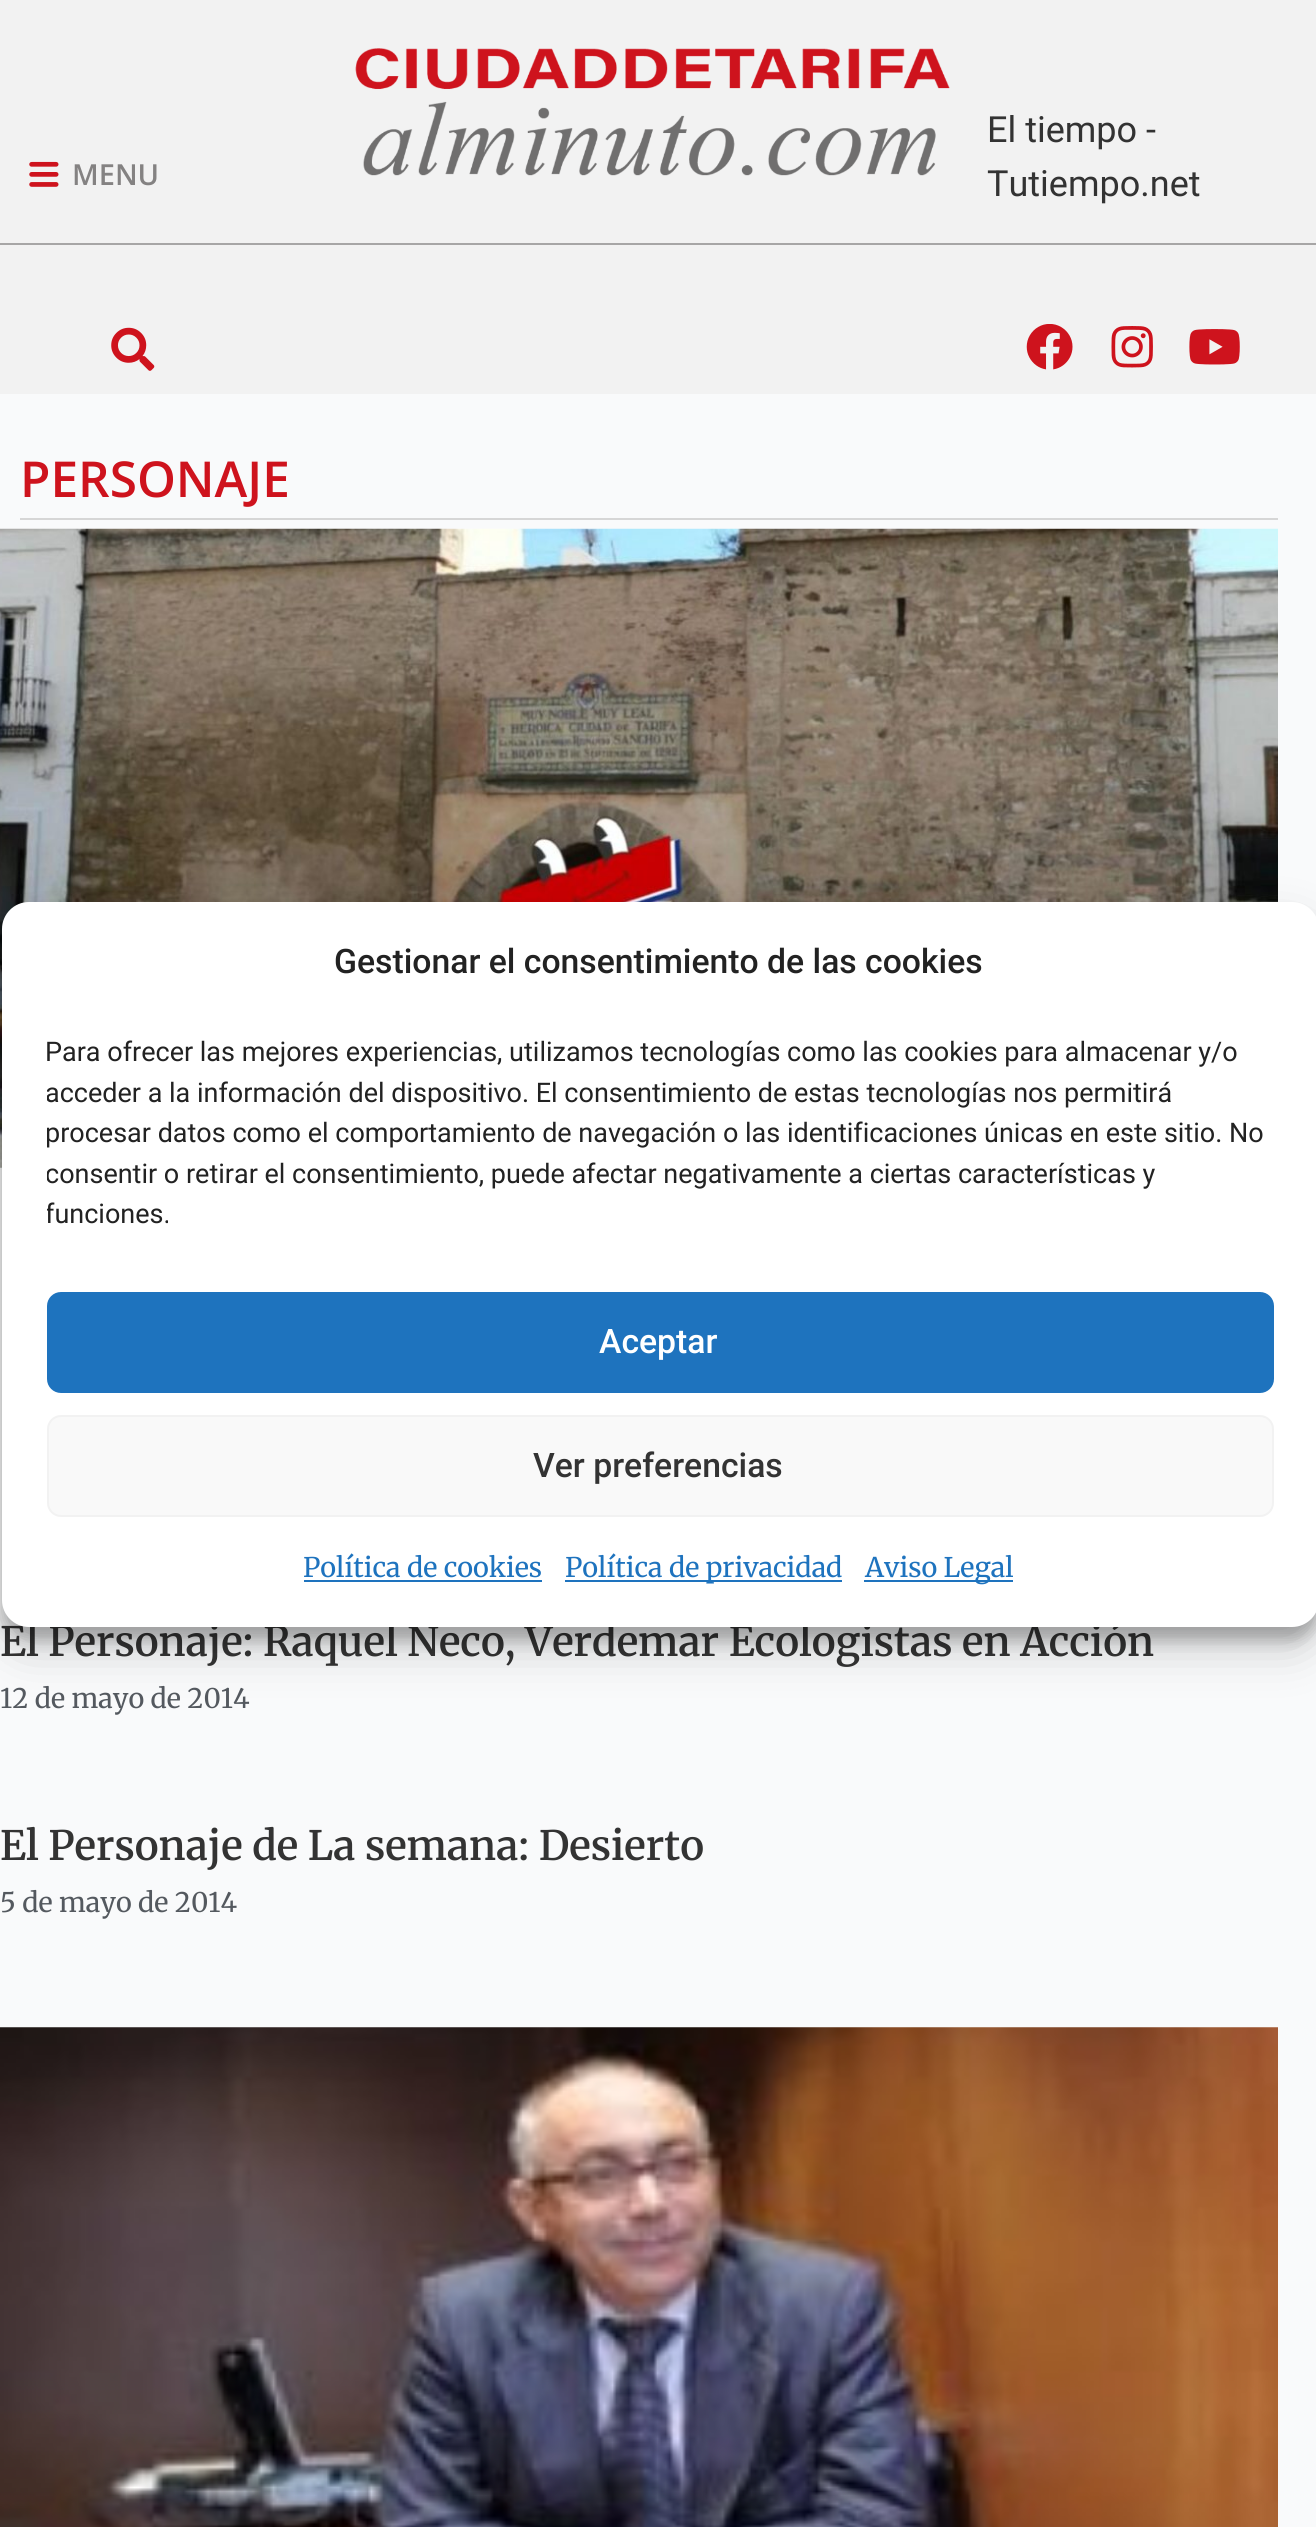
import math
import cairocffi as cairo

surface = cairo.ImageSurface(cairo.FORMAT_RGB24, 1316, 2527)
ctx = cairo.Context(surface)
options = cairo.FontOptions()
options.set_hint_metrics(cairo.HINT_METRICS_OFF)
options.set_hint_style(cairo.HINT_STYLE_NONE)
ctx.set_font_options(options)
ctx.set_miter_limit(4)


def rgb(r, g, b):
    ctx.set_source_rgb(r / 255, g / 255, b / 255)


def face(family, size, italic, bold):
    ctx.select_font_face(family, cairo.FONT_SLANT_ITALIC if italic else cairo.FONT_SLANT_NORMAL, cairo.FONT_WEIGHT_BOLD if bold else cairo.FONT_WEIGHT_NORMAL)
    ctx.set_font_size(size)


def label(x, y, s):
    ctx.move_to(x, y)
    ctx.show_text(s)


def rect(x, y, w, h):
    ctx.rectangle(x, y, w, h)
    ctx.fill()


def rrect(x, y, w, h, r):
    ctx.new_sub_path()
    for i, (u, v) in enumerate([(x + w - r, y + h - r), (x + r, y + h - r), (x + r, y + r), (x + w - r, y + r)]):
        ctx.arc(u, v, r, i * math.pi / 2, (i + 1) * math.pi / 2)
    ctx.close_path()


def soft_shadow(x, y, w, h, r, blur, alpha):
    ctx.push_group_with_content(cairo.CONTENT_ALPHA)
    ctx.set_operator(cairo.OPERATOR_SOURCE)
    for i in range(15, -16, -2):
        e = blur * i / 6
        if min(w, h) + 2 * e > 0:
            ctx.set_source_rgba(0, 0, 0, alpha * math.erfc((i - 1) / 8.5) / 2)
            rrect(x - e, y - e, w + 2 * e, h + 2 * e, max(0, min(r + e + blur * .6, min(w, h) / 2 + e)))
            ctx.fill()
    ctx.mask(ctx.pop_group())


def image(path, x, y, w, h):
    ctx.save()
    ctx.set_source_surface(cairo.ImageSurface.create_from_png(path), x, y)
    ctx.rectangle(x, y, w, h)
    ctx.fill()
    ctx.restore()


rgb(249, 250, 251)
ctx.paint()
rgb(242, 242, 242)
rect(0, 0, 1316, 394)
image('image0.png', 29, 161, 30, 26)
face('Open Sans SemiBold', 29, 0, 0)
rgb(132, 130, 130)
label(72, 185, 'MENU')
image('image1.png', 355, 48, 595, 128)
face('Roboto', 36, 0, 0)
rgb(51, 51, 51)
label(987, 142, 'El tiempo -')
label(987, 196, 'Tutiempo.net')
rgb(167, 166, 166)
rect(0, 243, 1316, 2)
image('image2.png', 111, 327, 44, 44)
image('image3.png', 1026, 324, 47, 46)
image('image4.png', 1111, 326, 42, 42)
image('image5.png', 1189, 329, 51, 36)
rgb(214, 214, 214)
rect(20, 518, 1258, 2)
face('Open Sans SemiBold', 49.5, 0, 0)
rgb(206, 19, 29)
label(20, 497, 'PERSONAJE')
image('image6.png', 0, 528, 1278, 640)
face('Merriweather SemiBold', 40.5, 0, 0)
rgb(51, 51, 51)
label(0, 1656, 'El Personaje: Raquel Ñeco, Verdemar Ecologistas en Acción')
face('Merriweather', 27, 0, 0)
rgb(84, 89, 95)
label(0, 1708, '12 de mayo de 2014')
face('Merriweather SemiBold', 40.5, 0, 0)
rgb(51, 51, 51)
label(0, 1860, 'El Personaje de La semana: Desierto')
face('Merriweather', 27, 0, 0)
rgb(84, 89, 95)
label(0, 1912, '5 de mayo de 2014')
image('image7.png', 0, 2027, 1278, 500)
rgb(0, 0, 0)
soft_shadow(2, 916, 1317, 724, 27, 7, 0.23)
soft_shadow(2, 925, 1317, 724, 27, 22.5, 0.19)
rgb(255, 255, 255)
rrect(2, 902, 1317, 725, 27)
ctx.fill()
face('Roboto Medium', 33.75, 0, 0)
rgb(34, 34, 34)
label(334, 973, 'Gestionar el consentimiento de las cookies')
face('Roboto', 27, 0, 0)
label(45, 1061, 'Para ofrecer las mejores experiencias, utilizamos tecnologías como las cookies para almacenar y/o')
ctx.save()
ctx.rectangle(47, 1033, 1227, 214)
ctx.clip()
label(45, 1102, 'acceder a la información del dispositivo. El consentimiento de estas tecnologías nos permitirá')
label(45, 1142, 'procesar datos como el comportamiento de navegación o las identificaciones únicas en este sitio. No')
label(45, 1183, 'consentir o retirar el consentimiento, puede afectar negativamente a ciertas características y')
label(45, 1223, 'funciones.')
ctx.restore()
rgb(30, 115, 190)
rrect(48, 1293, 1225, 99, 13)
ctx.fill_preserve()
ctx.stroke()
face('Roboto Medium', 33.75, 0, 0)
rgb(255, 255, 255)
label(599, 1353, 'Aceptar')
rgb(249, 249, 249)
rrect(48, 1416, 1225, 100, 13)
ctx.fill_preserve()
rgb(242, 242, 242)
ctx.stroke()
rgb(51, 51, 51)
label(533, 1477, 'Ver preferencias')
face('Merriweather', 27, 0, 0)
rgb(30, 115, 190)
label(303, 1577, 'Política de cookies')
rect(304, 1580, 238, 2)
rect(565, 1580, 277, 2)
label(565, 1577, 'Política de privacidad')
rect(864, 1580, 149, 2)
label(865, 1577, 'Aviso Legal')
surface.write_to_png('render.png')
